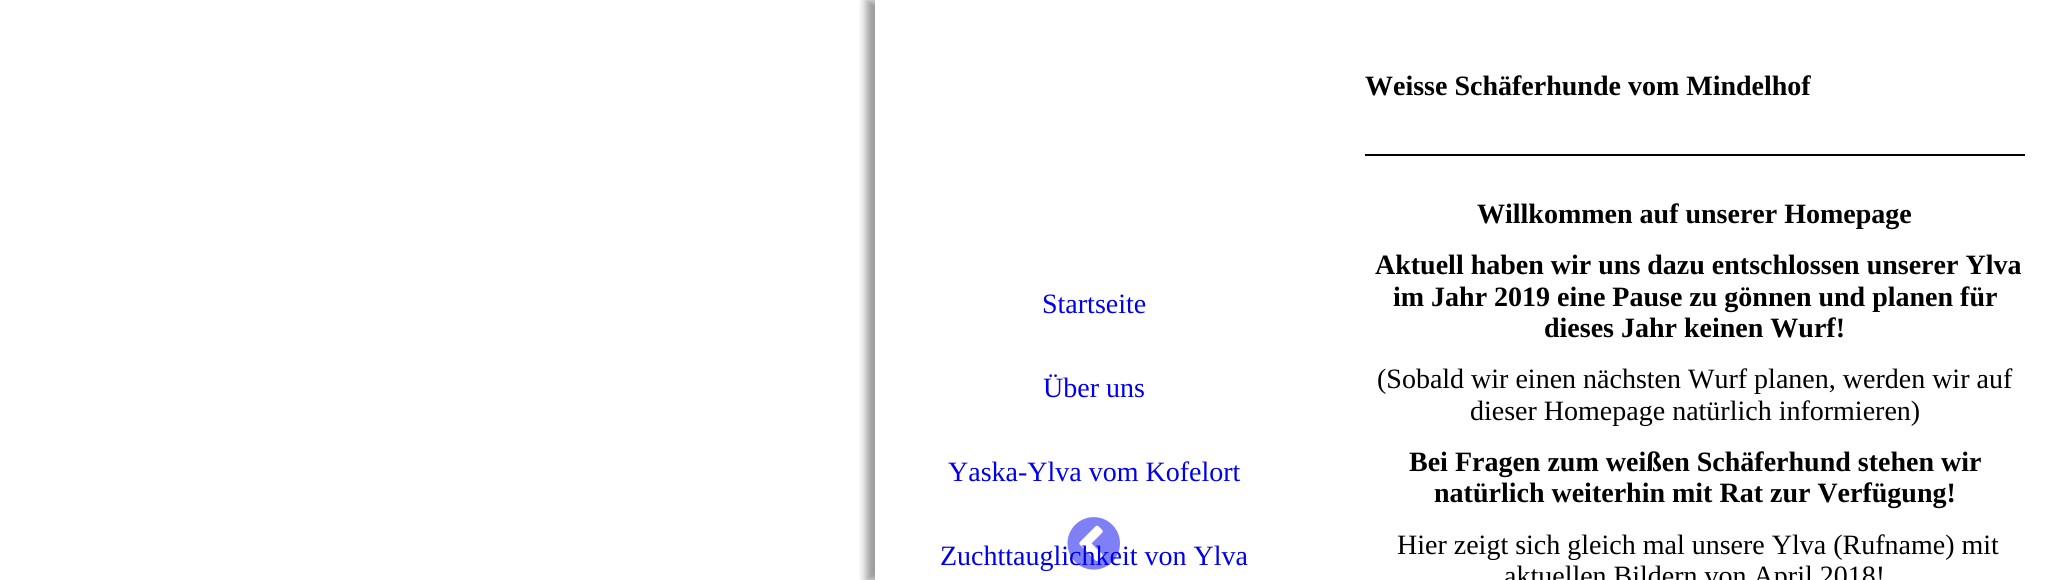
import math
import cairocffi as cairo

surface = cairo.ImageSurface(cairo.FORMAT_RGB24, 2059, 580)
ctx = cairo.Context(surface)
options = cairo.FontOptions()
options.set_hint_metrics(cairo.HINT_METRICS_OFF)
options.set_hint_style(cairo.HINT_STYLE_NONE)
ctx.set_font_options(options)
ctx.set_miter_limit(4)


def rgb(r, g, b):
    ctx.set_source_rgb(r / 255, g / 255, b / 255)


def face(family, size, italic, bold):
    ctx.select_font_face(family, cairo.FONT_SLANT_ITALIC if italic else cairo.FONT_SLANT_NORMAL, cairo.FONT_WEIGHT_BOLD if bold else cairo.FONT_WEIGHT_NORMAL)
    ctx.set_font_size(size)


def label(x, y, s):
    ctx.move_to(x, y)
    ctx.show_text(s)


def rect(x, y, w, h):
    ctx.rectangle(x, y, w, h)
    ctx.fill()


def rrect(x, y, w, h, r):
    ctx.new_sub_path()
    for i, (u, v) in enumerate([(x + w - r, y + h - r), (x + r, y + h - r), (x + r, y + r), (x + w - r, y + r)]):
        ctx.arc(u, v, r, i * math.pi / 2, (i + 1) * math.pi / 2)
    ctx.close_path()


def soft_shadow(x, y, w, h, r, blur, alpha):
    ctx.push_group_with_content(cairo.CONTENT_ALPHA)
    ctx.set_operator(cairo.OPERATOR_SOURCE)
    for i in range(15, -16, -2):
        e = blur * i / 6
        if min(w, h) + 2 * e > 0:
            ctx.set_source_rgba(0, 0, 0, alpha * math.erfc((i - 1) / 8.5) / 2)
            rrect(x - e, y - e, w + 2 * e, h + 2 * e, max(0, min(r + e + blur * .6, min(w, h) / 2 + e)))
            ctx.fill()
    ctx.mask(ctx.pop_group())


def image(path, x, y, w, h):
    ctx.save()
    ctx.set_source_surface(cairo.ImageSurface.create_from_png(path), x, y)
    ctx.rectangle(x, y, w, h)
    ctx.fill()
    ctx.restore()


rgb(255, 255, 255)
ctx.paint()
ctx.save()
ctx.rectangle(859, 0, 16, 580)
ctx.clip()
rgb(0, 0, 0)
soft_shadow(866, 0, 438, 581, 0, 4.5, 0.4)
ctx.restore()
face('Liberation Serif', 28, 0, 0)
rgb(0, 0, 238)
label(1042, 313, 'Startseite')
label(1043, 397, 'Über uns')
label(948, 481, 'Yaska-Ylva vom Kofelort')
label(940, 565, 'Zuchttauglichkeit von Ylva')
image('image0.png', 1067, 517, 53, 53)
face('Liberation Serif', 28, 0, 1)
rgb(0, 0, 0)
label(1365, 95, 'Weisse Schäferhunde vom Mindelhof')
rect(1365, 154, 660, 2)
label(1477, 223, 'Willkommen auf unserer Homepage')
label(1375, 274, 'Aktuell haben wir uns dazu entschlossen unserer Ylva')
label(1393, 306, 'im Jahr 2019 eine Pause zu gönnen und planen für')
label(1544, 337, 'dieses Jahr keinen Wurf!')
face('Liberation Serif', 28, 0, 0)
label(1377, 388, '(Sobald wir einen nächsten Wurf planen, werden wir auf')
label(1470, 420, 'dieser Homepage natürlich informieren)')
face('Liberation Serif', 28, 0, 1)
label(1409, 471, 'Bei Fragen zum weißen Schäferhund stehen wir')
label(1434, 502, 'natürlich weiterhin mit Rat zur Verfügung!')
face('Liberation Serif', 28, 0, 0)
label(1397, 554, 'Hier zeigt sich gleich mal unsere Ylva (Rufname) mit')
label(1504, 585, 'aktuellen Bildern von April 2018!')
surface.write_to_png('render.png')
